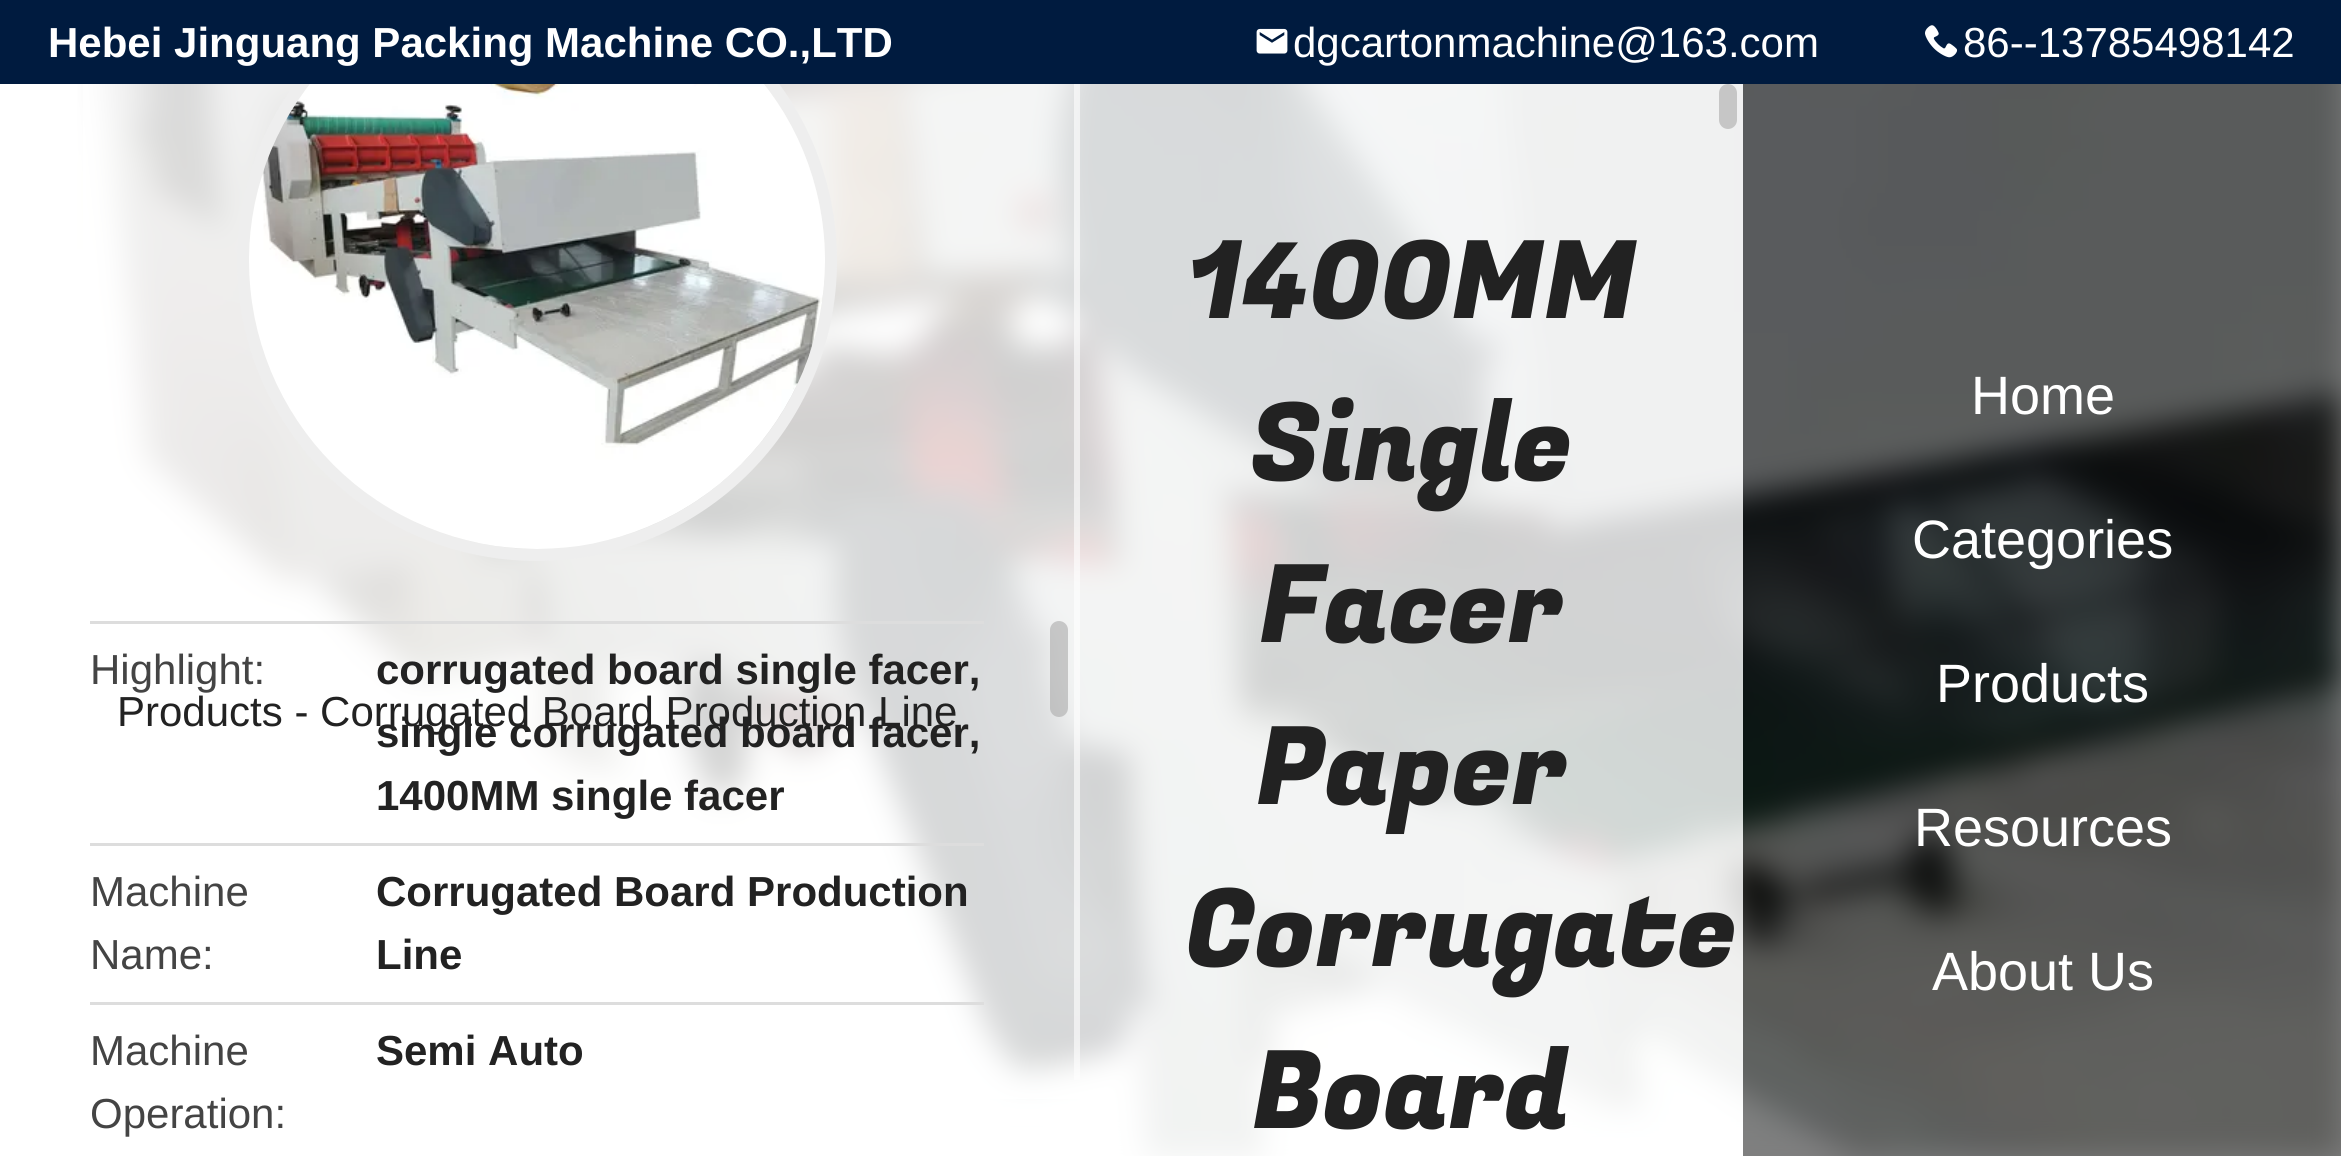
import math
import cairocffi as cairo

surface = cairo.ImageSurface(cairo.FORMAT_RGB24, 2341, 1156)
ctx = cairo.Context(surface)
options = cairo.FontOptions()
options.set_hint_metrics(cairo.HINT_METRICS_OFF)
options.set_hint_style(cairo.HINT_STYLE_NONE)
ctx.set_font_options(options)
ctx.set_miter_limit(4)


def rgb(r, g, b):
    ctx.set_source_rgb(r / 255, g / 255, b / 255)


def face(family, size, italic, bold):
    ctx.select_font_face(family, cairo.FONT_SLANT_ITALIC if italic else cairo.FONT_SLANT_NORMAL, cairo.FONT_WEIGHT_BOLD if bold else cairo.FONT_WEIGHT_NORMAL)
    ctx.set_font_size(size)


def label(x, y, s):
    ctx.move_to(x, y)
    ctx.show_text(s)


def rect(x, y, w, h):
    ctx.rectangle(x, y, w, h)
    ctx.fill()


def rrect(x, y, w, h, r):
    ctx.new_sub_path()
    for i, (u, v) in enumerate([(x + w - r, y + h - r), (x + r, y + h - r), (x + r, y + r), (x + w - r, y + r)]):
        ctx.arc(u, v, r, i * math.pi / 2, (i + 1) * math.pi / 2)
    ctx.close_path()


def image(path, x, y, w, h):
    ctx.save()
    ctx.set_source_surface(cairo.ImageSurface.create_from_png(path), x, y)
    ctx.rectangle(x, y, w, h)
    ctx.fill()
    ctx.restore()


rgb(255, 255, 255)
ctx.paint()
image('image2.png', 77, 84, 2264, 1072)
ctx.set_source_rgba(1, 1, 1, 0.8)
rect(83, 84, 997, 1015)
ctx.arc(537, 261, 294, 0, 2 * math.pi)
rgb(238, 238, 238)
ctx.set_line_width(12)
ctx.stroke()
rgb(0, 27, 63)
rect(0, 0, 2341, 84)
face('Liberation Sans', 42, 0, 1)
rgb(255, 255, 255)
label(48, 57, 'Hebei Jinguang Packing Machine CO.,LTD')
image('image0.png', 1256, 28, 32, 26)
face('Liberation Sans', 42, 0, 0)
label(1293, 57, 'dgcartonmachine@163.com')
image('image1.png', 1925, 25, 33, 33)
label(1963, 57, '86--13785498142')
ctx.set_source_rgba(1, 1, 1, 0.6)
rect(1074, 84, 6, 996)
rgb(221, 221, 221)
rect(90, 621, 894, 3)
rgb(68, 68, 68)
label(90, 684, 'Highlight:')
face('Liberation Sans', 42, 0, 1)
rgb(34, 34, 34)
label(376, 684, 'corrugated board single facer,')
face('Liberation Sans', 42, 0, 0)
label(117, 726, 'Products - Corrugated Board Production Line')
face('Liberation Sans', 42, 0, 1)
label(376, 747, 'single corrugated board facer,')
label(376, 810, '1400MM single facer')
rgb(221, 221, 221)
rect(90, 843, 894, 3)
face('Liberation Sans', 42, 0, 0)
rgb(68, 68, 68)
label(90, 906, 'Machine')
label(90, 969, 'Name:')
face('Liberation Sans', 42, 0, 1)
rgb(34, 34, 34)
label(376, 906, 'Corrugated Board Production')
label(376, 969, 'Line')
rgb(221, 221, 221)
rect(90, 1002, 894, 3)
face('Liberation Sans', 42, 0, 0)
rgb(68, 68, 68)
label(90, 1065, 'Machine')
label(90, 1128, 'Operation:')
face('Liberation Sans', 42, 0, 1)
rgb(34, 34, 34)
label(376, 1065, 'Semi Auto')
ctx.set_source_rgba(0.667, 0.667, 0.667, 0.6)
rrect(1050, 621, 18, 96, 9)
ctx.fill()
image('image3.png', 249, 84, 576, 465)
ctx.set_source_rgba(1, 1, 1, 0.8)
rect(1080, 84, 663, 1072)
rgb(198, 198, 198)
rrect(1719, 84, 18, 45, 9)
ctx.fill()
face('Fugaz One', 108, 0, 0)
rgb(34, 34, 34)
label(1187, 318, '1400MM')
label(1250, 480, 'Single')
label(1259, 642, 'Facer')
label(1256, 804, 'Paper')
label(1185, 966, 'Corrugate')
label(1252, 1128, 'Board')
ctx.set_source_rgba(0, 0, 0, 0.5)
rect(1743, 84, 598, 1072)
face('Liberation Sans', 54, 0, 0)
rgb(255, 255, 255)
label(1971, 414, 'Home')
label(1912, 558, 'Categories')
label(1936, 702, 'Products')
label(1914, 846, 'Resources')
label(1932, 990, 'About Us')
surface.write_to_png('render.png')
